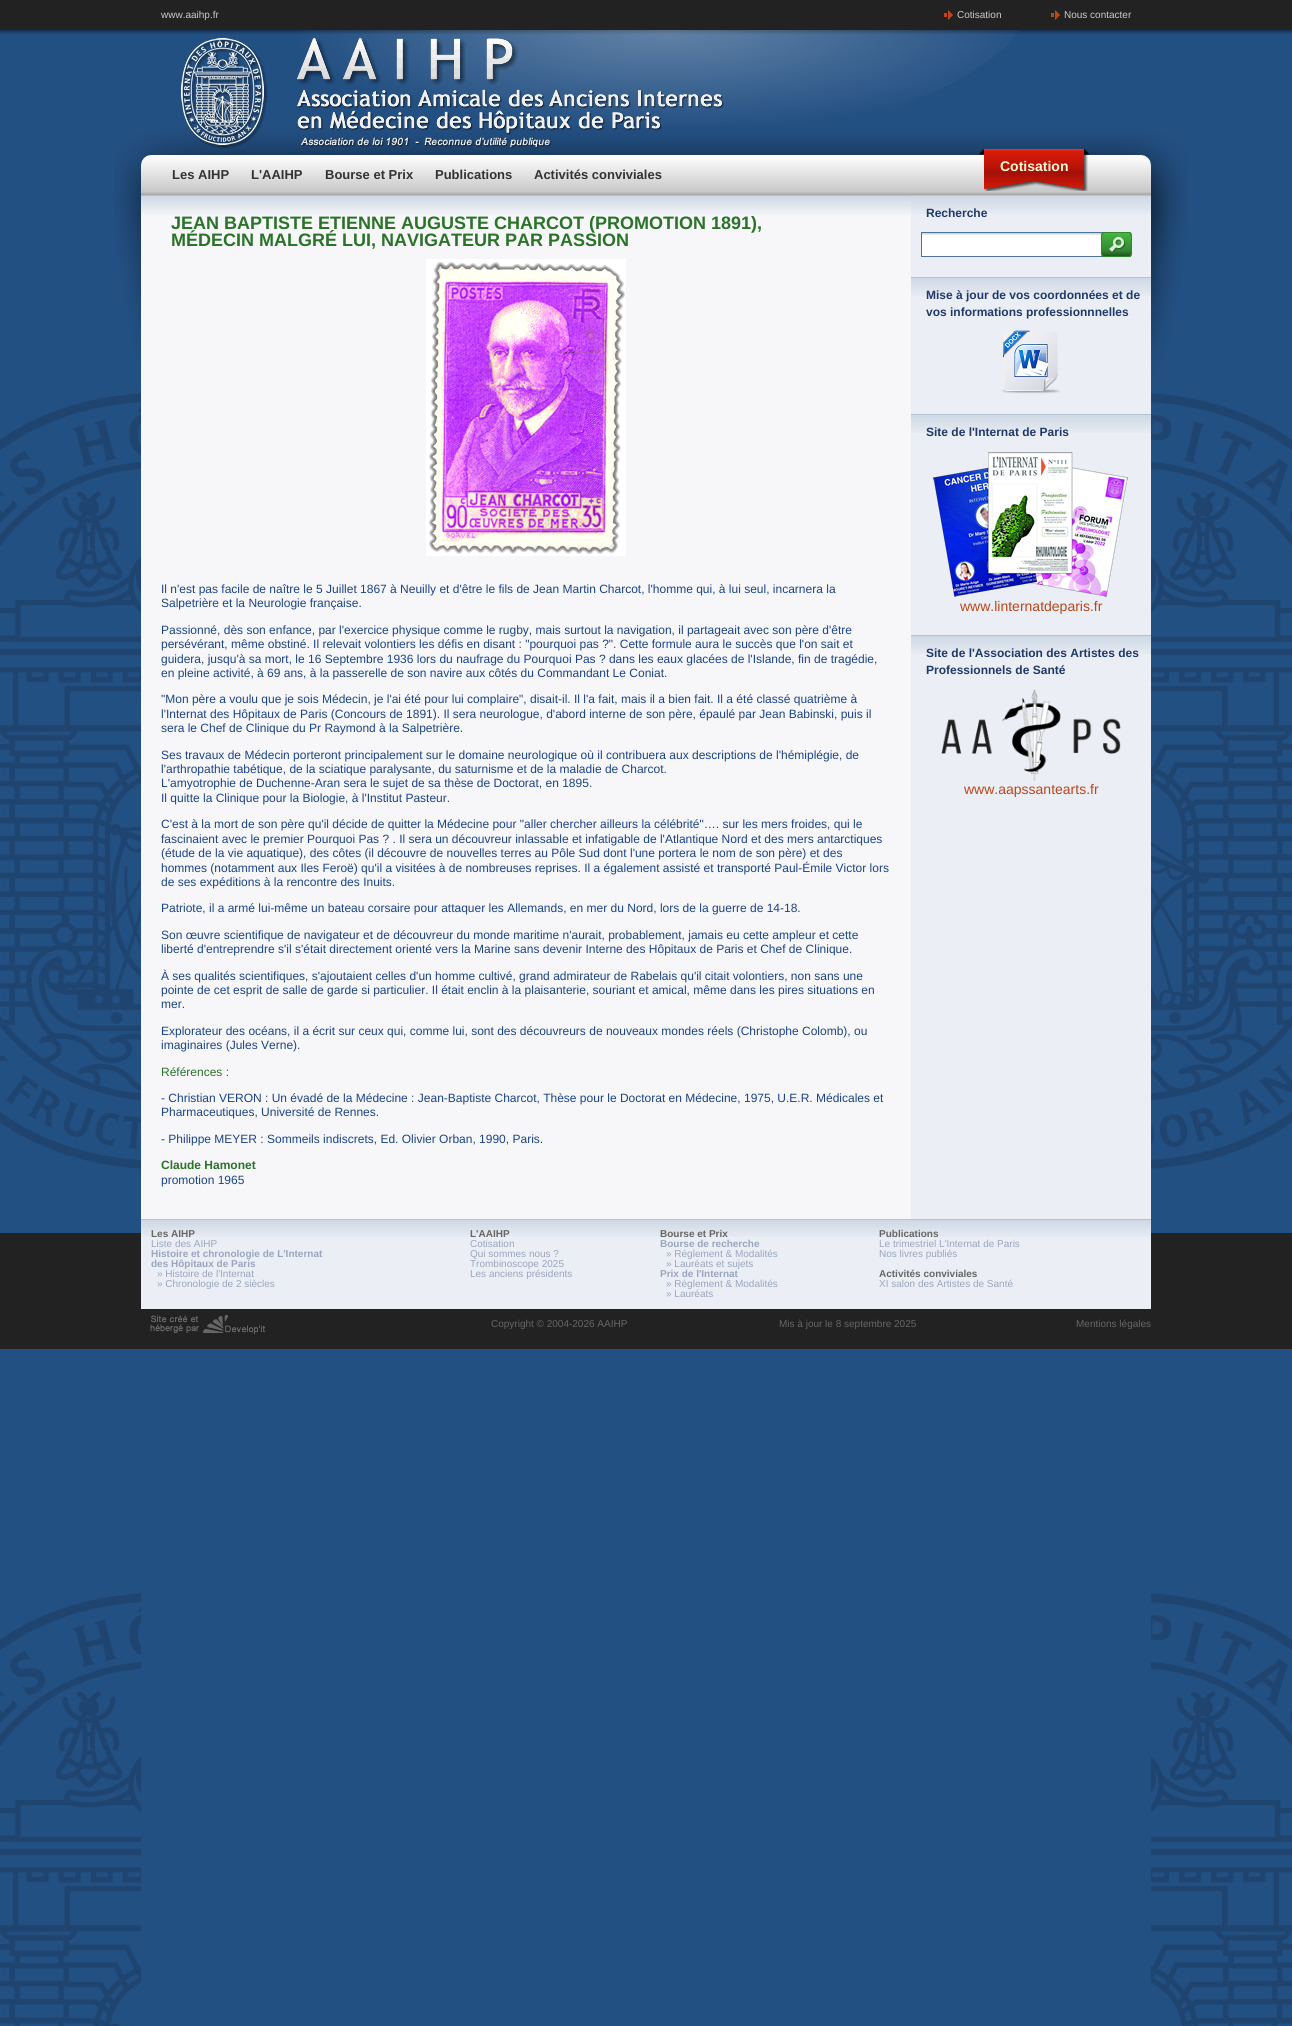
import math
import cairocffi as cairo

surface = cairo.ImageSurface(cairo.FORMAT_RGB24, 1292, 2026)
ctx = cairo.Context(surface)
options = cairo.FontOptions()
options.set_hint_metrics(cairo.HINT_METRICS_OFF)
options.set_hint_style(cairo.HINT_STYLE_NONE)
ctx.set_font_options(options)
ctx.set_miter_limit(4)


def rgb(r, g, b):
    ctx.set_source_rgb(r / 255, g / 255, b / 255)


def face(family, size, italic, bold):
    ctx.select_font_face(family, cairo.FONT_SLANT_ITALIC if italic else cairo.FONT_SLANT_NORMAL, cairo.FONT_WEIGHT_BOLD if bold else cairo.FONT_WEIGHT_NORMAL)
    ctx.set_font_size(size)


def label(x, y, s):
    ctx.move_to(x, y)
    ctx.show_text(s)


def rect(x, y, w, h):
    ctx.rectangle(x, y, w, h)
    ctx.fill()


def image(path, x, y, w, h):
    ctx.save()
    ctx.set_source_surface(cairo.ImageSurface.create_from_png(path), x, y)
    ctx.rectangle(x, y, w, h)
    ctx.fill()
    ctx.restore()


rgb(35, 80, 131)
ctx.paint()
image('image0.png', 0, 392, 1292, 1634)
rgb(34, 34, 34)
rect(0, 0, 1292, 30)
image('image1.png', 0, 30, 1292, 5)
face('Liberation Sans', 10, 0, 0)
rgb(204, 204, 204)
label(161, 18, 'www.aaihp.fr')
image('image2.png', 944, 10, 9, 10)
label(957, 18, 'Cotisation')
image('image2.png', 1051, 10, 9, 10)
label(1064, 18, 'Nous contacter')
image('image3.png', 114, 30, 1074, 358)
image('image4.png', 181, 38, 543, 111)
image('image5.png', 141, 155, 1010, 40)
image('image6.png', 979, 149, 110, 42)
face('Liberation Sans', 14, 0, 1)
rgb(255, 248, 216)
label(1000, 171, 'Cotisation')
face('Liberation Sans', 13, 0, 1)
rgb(51, 51, 51)
label(172, 179, 'Les AIHP')
label(251, 179, 'L\'AAIHP')
label(325, 179, 'Bourse et Prix')
label(435, 179, 'Publications')
label(534, 179, 'Activités conviviales')
rgb(247, 247, 250)
rect(141, 215, 770, 1004)
image('image7.png', 141, 195, 770, 20)
face('Liberation Sans', 18, 0, 1)
rgb(42, 115, 41)
label(171, 229, 'JEAN BAPTISTE ETIENNE AUGUSTE CHARCOT (PROMOTION 1891),')
label(171, 246, 'MÉDECIN MALGRÉ LUI, NAVIGATEUR PAR PASSION')
image('image8.png', 426, 259, 200, 297)
face('Liberation Sans', 12, 0, 0)
rgb(27, 67, 137)
label(161, 593, 'Il n\'est pas facile de naître le 5 Juillet 1867 à Neuilly et d\'être le fils de Jean Martin Charcot, l\'homme qui, à lui seul, incarnera la')
label(161, 607, 'Salpetrière et la Neurologie française.')
label(161, 634, 'Passionné, dès son enfance, par l\'exercice physique comme le rugby, mais surtout la navigation, il partageait avec son père d\'être')
label(161, 648, 'persévérant, même obstiné. Il relevait volontiers les défis en disant : "pourquoi pas ?". Cette formule aura le succès que l\'on sait et')
label(161, 663, 'guidera, jusqu\'à sa mort, le 16 Septembre 1936 lors du naufrage du Pourquoi Pas ? dans les eaux glacées de l\'Islande, fin de tragédie,')
label(161, 677, 'en pleine activité, à 69 ans, à la passerelle de son navire aux côtés du Commandant Le Coniat.')
label(161, 703, '"Mon père a voulu que je sois Médecin, je l\'ai été pour lui complaire", disait-il. Il l\'a fait, mais il a bien fait. Il a été classé quatrième à')
label(161, 718, 'l\'Internat des Hôpitaux de Paris (Concours de 1891). Il sera neurologue, d\'abord interne de son père, épaulé par Jean Babinski, puis il')
label(161, 732, 'sera le Chef de Clinique du Pr Raymond à la Salpetrière.')
label(161, 759, 'Ses travaux de Médecin porteront principalement sur le domaine neurologique où il contribuera aux descriptions de l\'hémiplégie, de')
label(161, 773, 'l\'arthropathie tabétique, de la sciatique paralysante, du saturnisme et de la maladie de Charcot.')
label(161, 787, 'L\'amyotrophie de Duchenne-Aran sera le sujet de sa thèse de Doctorat, en 1895.')
label(161, 802, 'Il quitte la Clinique pour la Biologie, à l\'Institut Pasteur.')
label(161, 828, 'C\'est à la mort de son père qu\'il décide de quitter la Médecine pour "aller chercher ailleurs la célébrité"…. sur les mers froides, qui le')
label(161, 843, 'fascinaient avec le premier Pourquoi Pas ? . Il sera un découvreur inlassable et infatigable de l\'Atlantique Nord et des mers antarctiques')
label(161, 857, '(étude de la vie aquatique), des côtes (il découvre de nouvelles terres au Pôle Sud dont l\'une portera le nom de son père) et des')
label(161, 872, 'hommes (notamment aux Iles Feroë) qu\'il a visitées à de nombreuses reprises. Il a également assisté et transporté Paul-Émile Victor lors')
label(161, 886, 'de ses expéditions à la rencontre des Inuits.')
label(161, 912, 'Patriote, il a armé lui-même un bateau corsaire pour attaquer les Allemands, en mer du Nord, lors de la guerre de 14-18.')
label(161, 939, 'Son œuvre scientifique de navigateur et de découvreur du monde maritime n\'aurait, probablement, jamais eu cette ampleur et cette')
label(161, 953, 'liberté d\'entreprendre s\'il s\'était directement orienté vers la Marine sans devenir Interne des Hôpitaux de Paris et Chef de Clinique.')
label(161, 980, 'À ses qualités scientifiques, s\'ajoutaient celles d\'un homme cultivé, grand admirateur de Rabelais qu\'il citait volontiers, non sans une')
label(161, 994, 'pointe de cet esprit de salle de garde si particulier. Il était enclin à la plaisanterie, souriant et amical, même dans les pires situations en')
label(161, 1008, 'mer.')
label(161, 1035, 'Explorateur des océans, il a écrit sur ceux qui, comme lui, sont des découvreurs de nouveaux mondes réels (Christophe Colomb), ou')
label(161, 1049, 'imaginaires (Jules Verne).')
rgb(42, 115, 41)
label(161, 1076, 'Références :')
rgb(27, 67, 137)
label(161, 1102, '- Christian VERON : Un évadé de la Médecine : Jean-Baptiste Charcot, Thèse pour le Doctorat en Médecine, 1975, U.E.R. Médicales et')
label(161, 1116, 'Pharmaceutiques, Université de Rennes.')
label(161, 1143, '- Philippe MEYER : Sommeils indiscrets, Ed. Olivier Orban, 1990, Paris.')
face('Liberation Sans', 12, 0, 1)
rgb(42, 115, 41)
label(161, 1169, 'Claude Hamonet')
face('Liberation Sans', 12, 0, 0)
rgb(27, 67, 137)
label(161, 1184, 'promotion 1965')
rgb(235, 238, 245)
rect(911, 214, 240, 1005)
image('image9.png', 911, 195, 240, 19)
face('Liberation Sans', 12, 0, 1)
rgb(31, 57, 106)
label(926, 217, 'Recherche')
rgb(255, 255, 255)
rect(922, 235, 180, 21)
image('image10.png', 922, 233, 180, 2)
ctx.rectangle(921.5, 232.5, 184, 24)
rgb(78, 115, 155)
ctx.set_line_width(1)
ctx.stroke()
image('image11.png', 1101, 232, 31, 25)
image('image9.png', 911, 277, 240, 19)
rgb(31, 57, 106)
label(926, 299, 'Mise à jour de vos coordonnées et de')
label(926, 316, 'vos informations professionnnelles')
image('image12.png', 1001, 330, 60, 64)
image('image9.png', 911, 414, 240, 19)
label(926, 436, 'Site de l\'Internat de Paris')
image('image13.png', 933, 452, 195, 145)
face('Liberation Sans', 14, 0, 0)
rgb(186, 70, 26)
label(960, 611, 'www.linternatdeparis.fr')
image('image9.png', 911, 635, 240, 19)
face('Liberation Sans', 12, 0, 1)
rgb(31, 57, 106)
label(926, 657, 'Site de l\'Association des Artistes des')
label(926, 674, 'Professionnels de Santé')
image('image14.png', 941, 689, 180, 92)
face('Liberation Sans', 14, 0, 0)
rgb(186, 70, 26)
label(964, 794, 'www.aapssantearts.fr')
rgb(34, 34, 34)
rect(0, 1233, 1292, 116)
rgb(235, 238, 245)
rect(141, 1237, 1010, 72)
image('image15.png', 141, 1219, 1010, 18)
face('Liberation Sans', 10, 0, 1)
rgb(102, 102, 102)
label(151, 1237, 'Les AIHP')
face('Liberation Sans', 10, 0, 0)
rgb(153, 166, 189)
label(151, 1247, 'Liste des AIHP')
face('Liberation Sans', 10, 0, 1)
label(151, 1257, 'Histoire et chronologie de L\'Internat')
label(151, 1267, 'des Hôpitaux de Paris')
face('Liberation Sans', 10, 0, 0)
label(157, 1277, '» Histoire de l\'Internat')
label(157, 1287, '» Chronologie de 2 siècles')
face('Liberation Sans', 10, 0, 1)
rgb(102, 102, 102)
label(470, 1237, 'L\'AAIHP')
face('Liberation Sans', 10, 0, 0)
rgb(153, 166, 189)
label(470, 1247, 'Cotisation')
label(470, 1257, 'Qui sommes nous ?')
label(470, 1267, 'Trombinoscope 2025')
label(470, 1277, 'Les anciens présidents')
face('Liberation Sans', 10, 0, 1)
rgb(102, 102, 102)
label(660, 1237, 'Bourse et Prix')
rgb(153, 166, 189)
label(660, 1247, 'Bourse de recherche')
face('Liberation Sans', 10, 0, 0)
label(666, 1257, '» Réglement & Modalités')
label(666, 1267, '» Lauréats et sujets')
face('Liberation Sans', 10, 0, 1)
label(660, 1277, 'Prix de l\'Internat')
face('Liberation Sans', 10, 0, 0)
label(666, 1287, '» Réglement & Modalités')
label(666, 1297, '» Lauréats')
face('Liberation Sans', 10, 0, 1)
rgb(102, 102, 102)
label(879, 1237, 'Publications')
face('Liberation Sans', 10, 0, 0)
rgb(153, 166, 189)
label(879, 1247, 'Le trimestriel L\'Internat de Paris')
label(879, 1257, 'Nos livres publiés')
face('Liberation Sans', 10, 0, 1)
rgb(102, 102, 102)
label(879, 1277, 'Activités conviviales')
face('Liberation Sans', 10, 0, 0)
rgb(153, 166, 189)
label(879, 1287, 'XI salon des Artistes de Santé')
image('image16.png', 150, 1315, 116, 19)
rgb(102, 102, 102)
label(491, 1327, 'Copyright © 2004-2026 AAIHP')
label(779, 1327, 'Mis à jour le 8 septembre 2025')
label(1076, 1327, 'Mentions légales')
surface.write_to_png('render.png')
